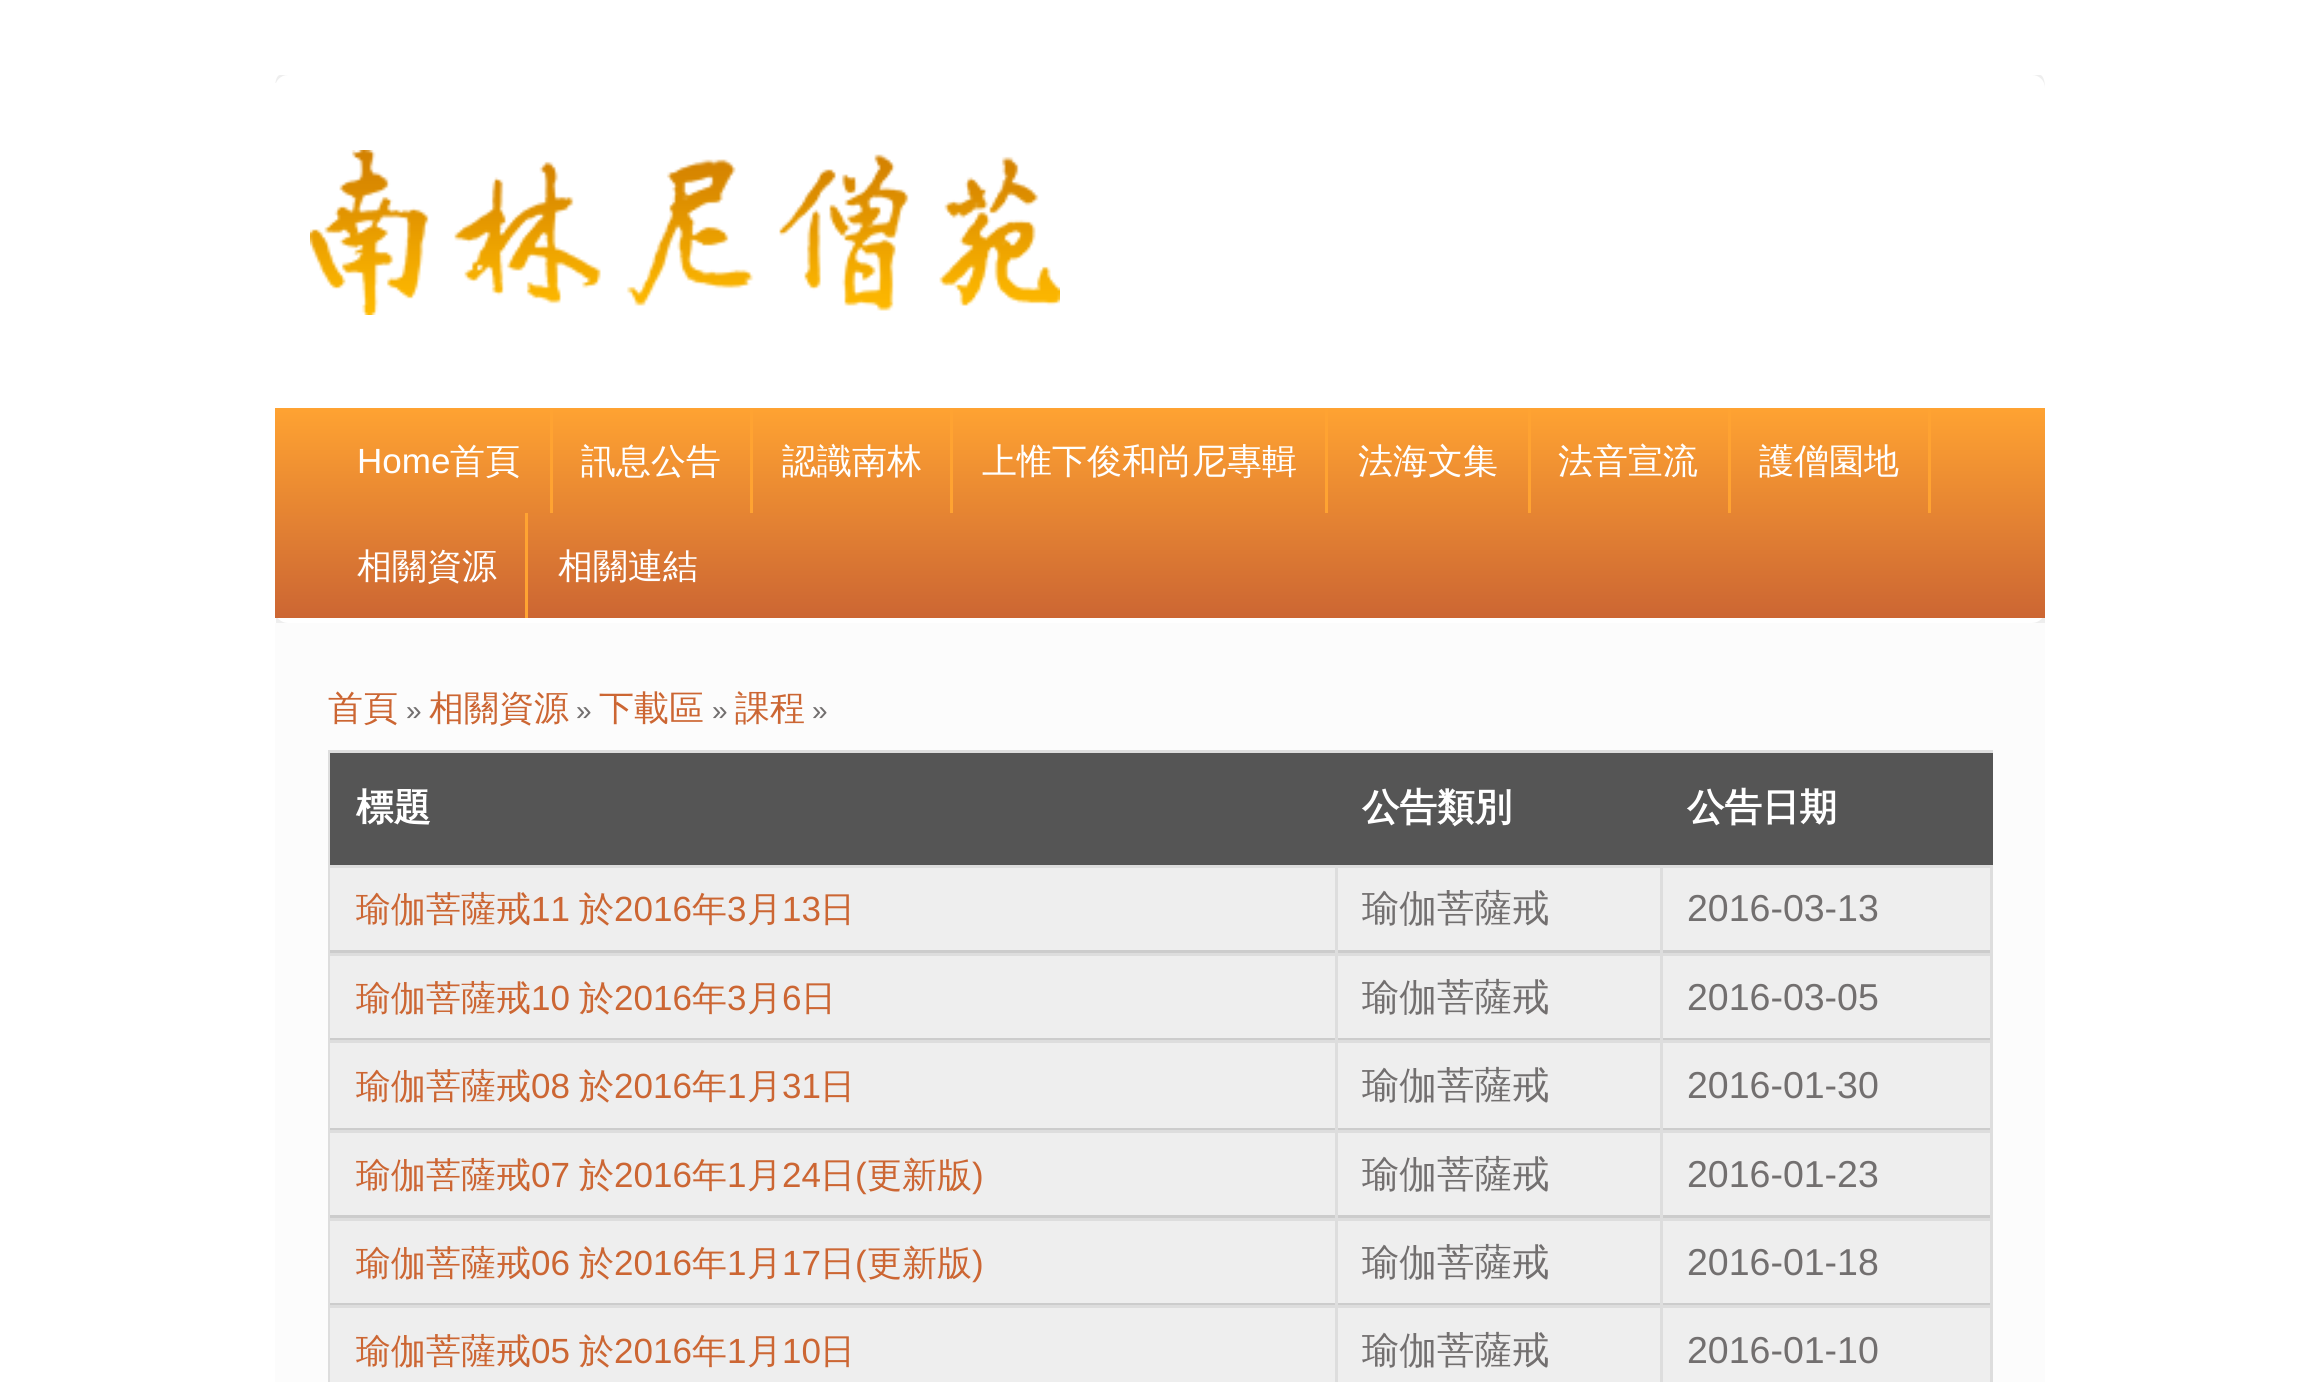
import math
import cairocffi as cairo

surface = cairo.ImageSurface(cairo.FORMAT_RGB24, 2319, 1382)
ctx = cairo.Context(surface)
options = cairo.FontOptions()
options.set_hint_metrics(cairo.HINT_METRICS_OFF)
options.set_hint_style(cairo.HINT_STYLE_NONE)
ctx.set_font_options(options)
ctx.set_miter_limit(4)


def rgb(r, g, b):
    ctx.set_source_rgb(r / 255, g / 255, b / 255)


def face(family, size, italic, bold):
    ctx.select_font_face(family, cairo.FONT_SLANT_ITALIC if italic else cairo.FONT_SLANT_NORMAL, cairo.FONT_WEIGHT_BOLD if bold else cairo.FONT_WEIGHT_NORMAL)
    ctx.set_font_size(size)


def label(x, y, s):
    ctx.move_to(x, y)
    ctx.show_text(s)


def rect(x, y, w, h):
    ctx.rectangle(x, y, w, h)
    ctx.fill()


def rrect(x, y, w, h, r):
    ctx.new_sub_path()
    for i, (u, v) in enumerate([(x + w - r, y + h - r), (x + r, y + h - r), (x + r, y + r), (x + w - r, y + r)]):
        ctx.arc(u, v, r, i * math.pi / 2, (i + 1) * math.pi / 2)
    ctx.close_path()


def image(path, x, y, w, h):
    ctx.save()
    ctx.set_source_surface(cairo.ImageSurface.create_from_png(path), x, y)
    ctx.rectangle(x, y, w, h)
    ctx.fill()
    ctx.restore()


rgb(255, 255, 255)
ctx.paint()
rgb(238, 238, 238)
ctx.new_path()
ctx.move_to(280, 75)
ctx.line_to(2040, 75)
ctx.curve_to(2043, 75, 2045, 81, 2045, 88)
ctx.line_to(2045, 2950)
ctx.curve_to(2045, 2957, 2043, 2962, 2040, 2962)
ctx.line_to(280, 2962)
ctx.curve_to(277, 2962, 275, 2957, 275, 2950)
ctx.line_to(275, 88)
ctx.curve_to(275, 81, 277, 75, 280, 75)
ctx.close_path()
ctx.fill()
rgb(255, 255, 255)
rect(275, 83, 1, 1299)
rrect(275, 75, 1770, 548, 13)
ctx.fill()
image('image0.png', 310, 150, 750, 165)
gradient = cairo.LinearGradient(1160, 407, 1160, 618)
gradient.add_color_stop_rgba(0, 1, 0.639, 0.196, 1)
gradient.add_color_stop_rgba(1, 0.8, 0.4, 0.2, 1)
ctx.set_source(gradient)
rect(275, 408, 1770, 210)
rgb(255, 163, 50)
rect(550, 408, 3, 105)
face('Liberation Sans', 35, 0, 0)
rgb(255, 255, 255)
label(357, 473, 'Home')
face('WenQuanYi Zen Hei Medium', 35, 0, 0)
label(450, 473, '首頁')
rgb(255, 163, 50)
rect(750, 408, 3, 105)
rgb(255, 255, 255)
label(581, 473, '訊息公告')
rgb(255, 163, 50)
rect(950, 408, 3, 105)
rgb(255, 255, 255)
label(782, 473, '認識南林')
rgb(255, 163, 50)
rect(1325, 408, 3, 105)
rgb(255, 255, 255)
label(982, 473, '上惟下俊和尚尼專輯')
rgb(255, 163, 50)
rect(1528, 408, 3, 105)
rgb(255, 255, 255)
label(1358, 473, '法海文集')
rgb(255, 163, 50)
rect(1728, 408, 3, 105)
rgb(255, 255, 255)
label(1558, 473, '法音宣流')
rgb(255, 163, 50)
rect(1928, 408, 3, 105)
rgb(255, 255, 255)
label(1759, 473, '護僧園地')
rgb(255, 163, 50)
rect(525, 513, 3, 105)
rgb(255, 255, 255)
label(357, 578, '相關資源')
label(558, 578, '相關連結')
rgb(252, 252, 252)
rect(275, 623, 1770, 759)
rgb(204, 102, 51)
label(328, 720, '首頁')
face('Liberation Sans', 28, 0, 0)
rgb(114, 111, 111)
label(406, 720, '»')
face('WenQuanYi Zen Hei Medium', 35, 0, 0)
rgb(204, 102, 51)
label(429, 720, '相關資源')
face('Liberation Sans', 28, 0, 0)
rgb(114, 111, 111)
label(576, 720, '»')
face('WenQuanYi Zen Hei Medium', 35, 0, 0)
rgb(204, 102, 51)
label(599, 720, '下載區')
face('Liberation Sans', 28, 0, 0)
rgb(114, 111, 111)
label(712, 720, '»')
face('WenQuanYi Zen Hei Medium', 35, 0, 0)
rgb(204, 102, 51)
label(735, 720, '課程')
face('Liberation Sans', 28, 0, 0)
rgb(114, 111, 111)
label(812, 720, '»')
rgb(221, 221, 221)
rect(328, 750, 1665, 3)
rect(328, 750, 3, 632)
rgb(85, 85, 85)
rect(330, 753, 1663, 112)
face('WenQuanYi Zen Hei', 37.5, 0, 1)
rgb(255, 255, 255)
label(356, 820, '標題')
label(1362, 820, '公告類別')
label(1687, 820, '公告日期')
rgb(238, 238, 238)
rect(330, 868, 1660, 82)
rgb(204, 204, 204)
rect(330, 950, 1663, 3)
rgb(221, 221, 221)
rect(330, 865, 1663, 3)
rect(1335, 865, 3, 88)
face('WenQuanYi Zen Hei Medium', 35, 0, 0)
rgb(204, 102, 51)
label(356, 921, '瑜伽菩薩戒')
face('Liberation Sans', 35, 0, 0)
label(531, 921, '11')
face('WenQuanYi Zen Hei Medium', 35, 0, 0)
label(579, 921, '於')
face('Liberation Sans', 35, 0, 0)
label(614, 921, '2016')
face('WenQuanYi Zen Hei Medium', 35, 0, 0)
label(692, 921, '年')
face('Liberation Sans', 35, 0, 0)
label(727, 921, '3')
face('WenQuanYi Zen Hei Medium', 35, 0, 0)
label(747, 921, '月')
face('Liberation Sans', 35, 0, 0)
label(782, 921, '13')
face('WenQuanYi Zen Hei Medium', 35, 0, 0)
label(820, 921, '日')
rgb(221, 221, 221)
rect(1660, 865, 3, 88)
face('WenQuanYi Zen Hei Medium', 37.5, 0, 0)
rgb(114, 111, 111)
label(1362, 921, '瑜伽菩薩戒')
rgb(221, 221, 221)
rect(1990, 865, 3, 88)
face('Liberation Sans', 37.5, 0, 0)
rgb(114, 111, 111)
label(1687, 921, '2016-03-13')
rgb(238, 238, 238)
rect(330, 956, 1660, 82)
rgb(204, 204, 204)
rect(330, 1038, 1663, 2)
rgb(221, 221, 221)
rect(330, 953, 1663, 3)
rect(1335, 953, 3, 87)
face('WenQuanYi Zen Hei Medium', 35, 0, 0)
rgb(204, 102, 51)
label(356, 1010, '瑜伽菩薩戒')
face('Liberation Sans', 35, 0, 0)
label(531, 1010, '10')
face('WenQuanYi Zen Hei Medium', 35, 0, 0)
label(579, 1010, '於')
face('Liberation Sans', 35, 0, 0)
label(614, 1010, '2016')
face('WenQuanYi Zen Hei Medium', 35, 0, 0)
label(692, 1010, '年')
face('Liberation Sans', 35, 0, 0)
label(727, 1010, '3')
face('WenQuanYi Zen Hei Medium', 35, 0, 0)
label(747, 1010, '月')
face('Liberation Sans', 35, 0, 0)
label(782, 1010, '6')
face('WenQuanYi Zen Hei Medium', 35, 0, 0)
label(801, 1010, '日')
rgb(221, 221, 221)
rect(1660, 953, 3, 87)
face('WenQuanYi Zen Hei Medium', 37.5, 0, 0)
rgb(114, 111, 111)
label(1362, 1010, '瑜伽菩薩戒')
rgb(221, 221, 221)
rect(1990, 953, 3, 87)
face('Liberation Sans', 37.5, 0, 0)
rgb(114, 111, 111)
label(1687, 1010, '2016-03-05')
rgb(238, 238, 238)
rect(330, 1043, 1660, 85)
rgb(204, 204, 204)
rect(330, 1128, 1663, 2)
rgb(221, 221, 221)
rect(330, 1040, 1663, 3)
rect(1335, 1040, 3, 90)
face('WenQuanYi Zen Hei Medium', 35, 0, 0)
rgb(204, 102, 51)
label(356, 1098, '瑜伽菩薩戒')
face('Liberation Sans', 35, 0, 0)
label(531, 1098, '08')
face('WenQuanYi Zen Hei Medium', 35, 0, 0)
label(579, 1098, '於')
face('Liberation Sans', 35, 0, 0)
label(614, 1098, '2016')
face('WenQuanYi Zen Hei Medium', 35, 0, 0)
label(692, 1098, '年')
face('Liberation Sans', 35, 0, 0)
label(727, 1098, '1')
face('WenQuanYi Zen Hei Medium', 35, 0, 0)
label(747, 1098, '月')
face('Liberation Sans', 35, 0, 0)
label(782, 1098, '31')
face('WenQuanYi Zen Hei Medium', 35, 0, 0)
label(820, 1098, '日')
rgb(221, 221, 221)
rect(1660, 1040, 3, 90)
face('WenQuanYi Zen Hei Medium', 37.5, 0, 0)
rgb(114, 111, 111)
label(1362, 1098, '瑜伽菩薩戒')
rgb(221, 221, 221)
rect(1990, 1040, 3, 90)
face('Liberation Sans', 37.5, 0, 0)
rgb(114, 111, 111)
label(1687, 1098, '2016-01-30')
rgb(238, 238, 238)
rect(330, 1133, 1660, 82)
rgb(204, 204, 204)
rect(330, 1215, 1663, 3)
rgb(221, 221, 221)
rect(330, 1130, 1663, 3)
rect(1335, 1130, 3, 88)
face('WenQuanYi Zen Hei Medium', 35, 0, 0)
rgb(204, 102, 51)
label(356, 1187, '瑜伽菩薩戒')
face('Liberation Sans', 35, 0, 0)
label(531, 1187, '07')
face('WenQuanYi Zen Hei Medium', 35, 0, 0)
label(579, 1187, '於')
face('Liberation Sans', 35, 0, 0)
label(614, 1187, '2016')
face('WenQuanYi Zen Hei Medium', 35, 0, 0)
label(692, 1187, '年')
face('Liberation Sans', 35, 0, 0)
label(727, 1187, '1')
face('WenQuanYi Zen Hei Medium', 35, 0, 0)
label(747, 1187, '月')
face('Liberation Sans', 35, 0, 0)
label(782, 1187, '24')
face('WenQuanYi Zen Hei Medium', 35, 0, 0)
label(820, 1187, '日')
face('Liberation Sans', 35, 0, 0)
label(855, 1187, '(')
face('WenQuanYi Zen Hei Medium', 35, 0, 0)
label(867, 1187, '更新版')
face('Liberation Sans', 35, 0, 0)
label(972, 1187, ')')
rgb(221, 221, 221)
rect(1660, 1130, 3, 88)
face('WenQuanYi Zen Hei Medium', 37.5, 0, 0)
rgb(114, 111, 111)
label(1362, 1187, '瑜伽菩薩戒')
rgb(221, 221, 221)
rect(1990, 1130, 3, 88)
face('Liberation Sans', 37.5, 0, 0)
rgb(114, 111, 111)
label(1687, 1187, '2016-01-23')
rgb(238, 238, 238)
rect(330, 1221, 1660, 82)
rgb(204, 204, 204)
rect(330, 1303, 1663, 2)
rgb(221, 221, 221)
rect(330, 1218, 1663, 3)
rect(1335, 1218, 3, 87)
face('WenQuanYi Zen Hei Medium', 35, 0, 0)
rgb(204, 102, 51)
label(356, 1275, '瑜伽菩薩戒')
face('Liberation Sans', 35, 0, 0)
label(531, 1275, '06')
face('WenQuanYi Zen Hei Medium', 35, 0, 0)
label(579, 1275, '於')
face('Liberation Sans', 35, 0, 0)
label(614, 1275, '2016')
face('WenQuanYi Zen Hei Medium', 35, 0, 0)
label(692, 1275, '年')
face('Liberation Sans', 35, 0, 0)
label(727, 1275, '1')
face('WenQuanYi Zen Hei Medium', 35, 0, 0)
label(747, 1275, '月')
face('Liberation Sans', 35, 0, 0)
label(782, 1275, '17')
face('WenQuanYi Zen Hei Medium', 35, 0, 0)
label(820, 1275, '日')
face('Liberation Sans', 35, 0, 0)
label(855, 1275, '(')
face('WenQuanYi Zen Hei Medium', 35, 0, 0)
label(867, 1275, '更新版')
face('Liberation Sans', 35, 0, 0)
label(972, 1275, ')')
rgb(221, 221, 221)
rect(1660, 1218, 3, 87)
face('WenQuanYi Zen Hei Medium', 37.5, 0, 0)
rgb(114, 111, 111)
label(1362, 1275, '瑜伽菩薩戒')
rgb(221, 221, 221)
rect(1990, 1218, 3, 87)
face('Liberation Sans', 37.5, 0, 0)
rgb(114, 111, 111)
label(1687, 1275, '2016-01-18')
rgb(238, 238, 238)
rect(330, 1308, 1660, 74)
rgb(221, 221, 221)
rect(330, 1305, 1663, 3)
rect(1335, 1305, 3, 77)
face('WenQuanYi Zen Hei Medium', 35, 0, 0)
rgb(204, 102, 51)
label(356, 1363, '瑜伽菩薩戒')
face('Liberation Sans', 35, 0, 0)
label(531, 1363, '05')
face('WenQuanYi Zen Hei Medium', 35, 0, 0)
label(579, 1363, '於')
face('Liberation Sans', 35, 0, 0)
label(614, 1363, '2016')
face('WenQuanYi Zen Hei Medium', 35, 0, 0)
label(692, 1363, '年')
face('Liberation Sans', 35, 0, 0)
label(727, 1363, '1')
face('WenQuanYi Zen Hei Medium', 35, 0, 0)
label(747, 1363, '月')
face('Liberation Sans', 35, 0, 0)
label(782, 1363, '10')
face('WenQuanYi Zen Hei Medium', 35, 0, 0)
label(820, 1363, '日')
rgb(221, 221, 221)
rect(1660, 1305, 3, 77)
face('WenQuanYi Zen Hei Medium', 37.5, 0, 0)
rgb(114, 111, 111)
label(1362, 1363, '瑜伽菩薩戒')
rgb(221, 221, 221)
rect(1990, 1305, 3, 77)
face('Liberation Sans', 37.5, 0, 0)
rgb(114, 111, 111)
label(1687, 1363, '2016-01-10')
surface.write_to_png('render.png')
